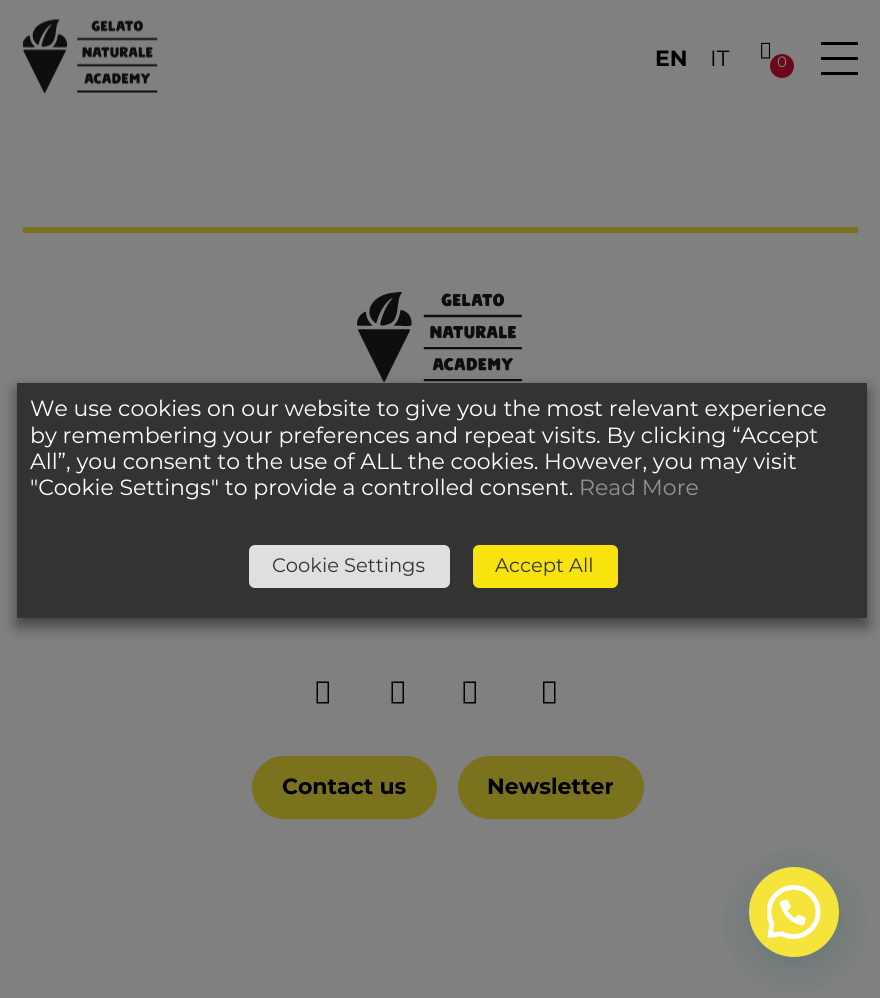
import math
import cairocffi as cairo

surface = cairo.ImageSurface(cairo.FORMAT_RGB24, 880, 998)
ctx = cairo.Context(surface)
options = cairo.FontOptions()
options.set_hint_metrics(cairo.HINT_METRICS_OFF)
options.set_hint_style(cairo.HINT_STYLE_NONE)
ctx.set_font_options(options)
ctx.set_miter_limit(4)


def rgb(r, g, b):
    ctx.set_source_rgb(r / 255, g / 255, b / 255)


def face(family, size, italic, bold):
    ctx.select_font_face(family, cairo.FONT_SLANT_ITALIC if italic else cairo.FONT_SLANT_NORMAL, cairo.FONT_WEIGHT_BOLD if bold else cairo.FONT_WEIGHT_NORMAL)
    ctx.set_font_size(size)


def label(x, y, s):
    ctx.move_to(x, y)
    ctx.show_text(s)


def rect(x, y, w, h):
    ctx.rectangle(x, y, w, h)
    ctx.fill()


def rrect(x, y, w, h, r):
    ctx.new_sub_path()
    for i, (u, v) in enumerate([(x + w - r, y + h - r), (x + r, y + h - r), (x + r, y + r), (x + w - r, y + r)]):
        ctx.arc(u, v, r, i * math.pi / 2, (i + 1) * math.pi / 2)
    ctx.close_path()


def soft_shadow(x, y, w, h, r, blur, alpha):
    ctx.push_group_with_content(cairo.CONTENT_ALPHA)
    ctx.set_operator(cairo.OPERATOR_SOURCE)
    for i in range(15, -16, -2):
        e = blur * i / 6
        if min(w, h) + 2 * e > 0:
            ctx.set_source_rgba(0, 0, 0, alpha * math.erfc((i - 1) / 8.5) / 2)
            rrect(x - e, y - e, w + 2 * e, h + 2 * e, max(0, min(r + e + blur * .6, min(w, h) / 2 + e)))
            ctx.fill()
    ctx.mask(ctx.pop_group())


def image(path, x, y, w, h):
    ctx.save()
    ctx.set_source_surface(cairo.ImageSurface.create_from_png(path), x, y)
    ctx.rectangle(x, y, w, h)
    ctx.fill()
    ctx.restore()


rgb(128, 128, 128)
ctx.paint()
image('image0.png', 23, 19, 135, 75)
face('Montserrat', 22, 0, 1)
rgb(0, 0, 0)
label(655, 66, 'EN')
face('Montserrat', 22, 0, 0)
label(710, 66, 'IT')
image('image1.png', 761, 42, 10, 17)
rgb(107, 8, 30)
ctx.arc(782, 66, 12, 0, 2 * math.pi)
ctx.fill()
face('Montserrat', 15, 0, 0)
rgb(128, 128, 128)
label(777, 67, '0')
rgb(0, 0, 0)
rect(821, 42, 37, 3)
rect(821, 57, 37, 3)
rect(821, 72, 37, 3)
image('image2.png', 357, 292, 165, 90)
rgb(0, 0, 0)
soft_shadow(17, 390, 850, 236, 0, 7.5, 0.5)
rgb(51, 51, 51)
rect(17, 383, 850, 235)
face('Montserrat', 22, 0, 0)
rgb(255, 255, 255)
label(30, 416, 'We use cookies on our website to give you the most relevant experience')
label(30, 443, 'by remembering your preferences and repeat visits. By clicking “Accept')
label(30, 469, 'All”, you consent to the use of ALL the cookies. However, you may visit')
label(30, 495, '"Cookie Settings" to provide a controlled consent.')
rgb(147, 147, 147)
label(579, 495, 'Read More')
rgb(222, 223, 224)
rrect(249, 545, 201, 43, 6)
ctx.fill()
face('Montserrat', 19.5, 0, 0)
rgb(51, 51, 51)
label(272, 572, 'Cookie Settings')
rgb(248, 227, 14)
rrect(473, 545, 145, 43, 6)
ctx.fill()
rgb(51, 51, 51)
label(495, 572, 'Accept All')
rgb(123, 114, 30)
rect(23, 227, 835, 6)
rgb(0, 0, 0)
ctx.new_path()
ctx.move_to(316.5, 703.5)
ctx.line_to(316.5, 681.5)
ctx.line_to(329, 681.5)
ctx.line_to(329, 703.5)
ctx.close_path()
ctx.move_to(318, 702)
ctx.line_to(327.5, 702)
ctx.line_to(327.5, 683)
ctx.line_to(318, 683)
ctx.close_path()
ctx.fill()
ctx.new_path()
ctx.move_to(391.5, 703.5)
ctx.line_to(391.5, 681.5)
ctx.line_to(404, 681.5)
ctx.line_to(404, 703.5)
ctx.close_path()
ctx.move_to(393, 702)
ctx.line_to(402.5, 702)
ctx.line_to(402.5, 683)
ctx.line_to(393, 683)
ctx.close_path()
ctx.fill()
ctx.new_path()
ctx.move_to(463.5, 703.5)
ctx.line_to(463.5, 681.5)
ctx.line_to(476, 681.5)
ctx.line_to(476, 703.5)
ctx.close_path()
ctx.move_to(465, 702)
ctx.line_to(474.5, 702)
ctx.line_to(474.5, 683)
ctx.line_to(465, 683)
ctx.close_path()
ctx.fill()
ctx.new_path()
ctx.move_to(543, 703.5)
ctx.line_to(543, 681.5)
ctx.line_to(555.5, 681.5)
ctx.line_to(555.5, 703.5)
ctx.close_path()
ctx.move_to(544.5, 702)
ctx.line_to(554, 702)
ctx.line_to(554, 683)
ctx.line_to(544.5, 683)
ctx.close_path()
ctx.fill()
rgb(123, 114, 30)
rrect(252, 756, 185, 63, 31.5)
ctx.fill()
face('Montserrat', 22, 0, 1)
rgb(0, 0, 0)
label(282, 794, 'Contact us')
rgb(123, 114, 30)
rrect(458, 756, 186, 63, 31.5)
ctx.fill()
rgb(0, 0, 0)
label(487, 794, 'Newsletter')
rgb(7, 94, 84)
soft_shadow(750, 876, 90, 90, 45, 18, 0.24)
rgb(245, 228, 60)
ctx.arc(794, 912, 45, 0, 2 * math.pi)
ctx.fill()
image('image3.png', 767, 885, 54, 54)
surface.write_to_png('render.png')
